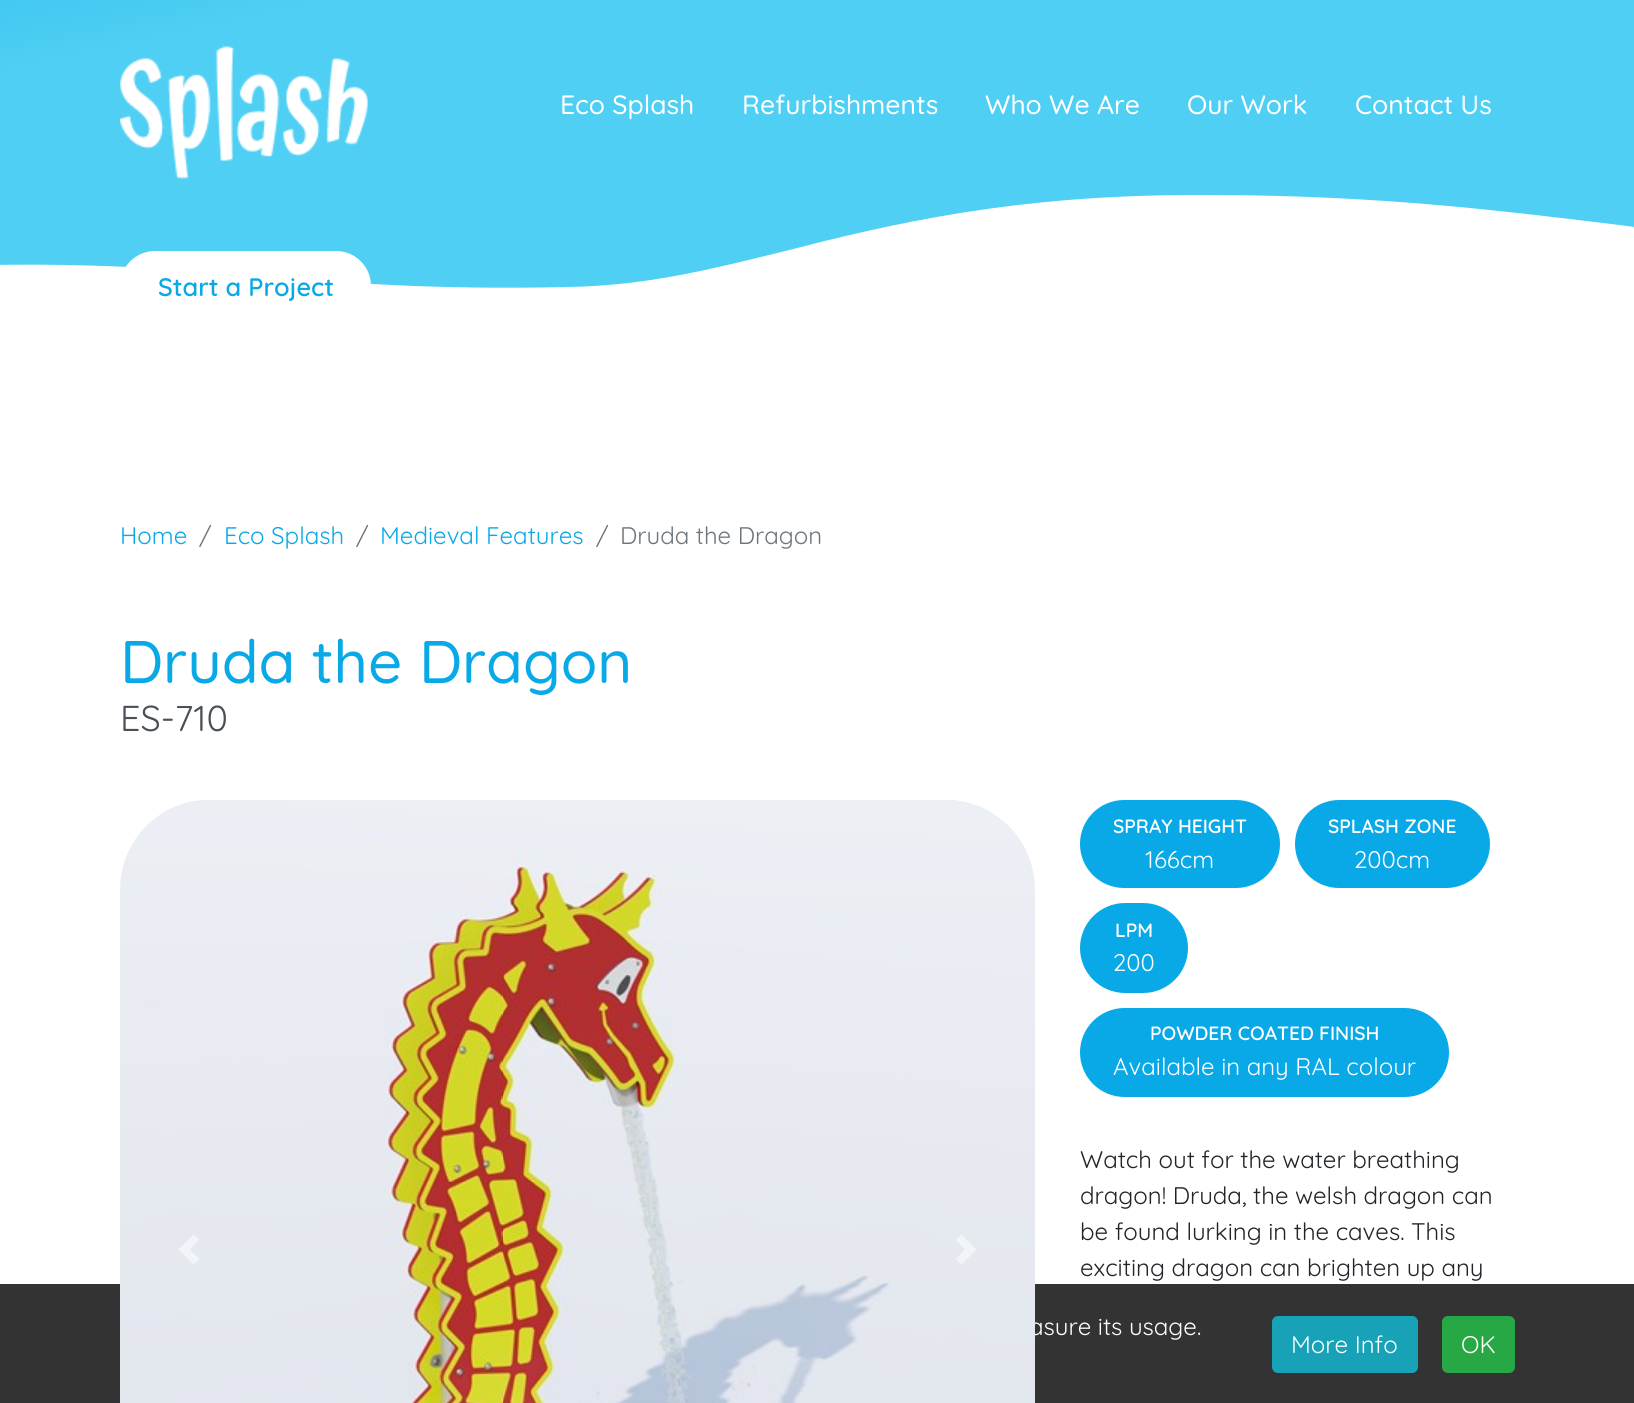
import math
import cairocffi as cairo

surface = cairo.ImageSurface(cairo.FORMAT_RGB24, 1634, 1403)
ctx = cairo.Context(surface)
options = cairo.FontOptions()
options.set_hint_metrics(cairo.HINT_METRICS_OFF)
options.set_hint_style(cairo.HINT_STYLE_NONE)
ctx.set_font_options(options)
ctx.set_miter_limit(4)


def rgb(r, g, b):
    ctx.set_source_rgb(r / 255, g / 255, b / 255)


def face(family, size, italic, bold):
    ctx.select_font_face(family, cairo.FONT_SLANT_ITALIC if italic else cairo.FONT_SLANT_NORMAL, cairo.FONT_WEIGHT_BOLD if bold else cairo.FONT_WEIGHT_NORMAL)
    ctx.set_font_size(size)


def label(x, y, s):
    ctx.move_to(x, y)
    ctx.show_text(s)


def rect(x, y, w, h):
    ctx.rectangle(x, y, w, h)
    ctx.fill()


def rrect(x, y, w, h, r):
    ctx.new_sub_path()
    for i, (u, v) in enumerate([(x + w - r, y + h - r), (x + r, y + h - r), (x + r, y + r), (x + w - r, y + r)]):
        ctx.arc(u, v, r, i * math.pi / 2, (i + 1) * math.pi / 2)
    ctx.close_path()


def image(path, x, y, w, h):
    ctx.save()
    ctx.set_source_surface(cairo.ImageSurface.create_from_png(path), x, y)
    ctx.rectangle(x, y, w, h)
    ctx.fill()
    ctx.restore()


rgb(255, 255, 255)
ctx.paint()
gradient = cairo.LinearGradient(-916, -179, -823, 254)
gradient.add_color_stop_rgba(0, 0.035, 0.663, 0.906, 1)
gradient.add_color_stop_rgba(1, 0.31, 0.812, 0.953, 1)
ctx.set_source(gradient)
ctx.new_path()
ctx.move_to(-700, 371)
ctx.curve_to(-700, 371, -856, 432, -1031, 417)
ctx.curve_to(-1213, 401, -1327, 319, -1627, 304)
ctx.curve_to(-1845, 290, -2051, 324, -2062, 326)
ctx.line_to(-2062, -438)
ctx.line_to(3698, -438)
ctx.line_to(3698, 121)
ctx.curve_to(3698, 121, 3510, 191, 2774, 195)
ctx.curve_to(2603, 195, 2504, 170, 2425, 150)
ctx.curve_to(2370, 136, 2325, 124, 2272, 127)
ctx.curve_to(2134, 131, 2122, 234, 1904, 243)
ctx.curve_to(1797, 247, 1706, 236, 1603, 223)
ctx.curve_to(1495, 210, 1374, 195, 1206, 195)
ctx.curve_to(1014, 194, 891, 224, 785, 251)
ctx.curve_to(709, 270, 643, 286, 567, 287)
ctx.curve_to(437, 290, 346, 283, 259, 276)
ctx.curve_to(150, 267, 44, 259, -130, 270)
ctx.curve_to(-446, 289, -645, 344, -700, 371)
ctx.close_path()
ctx.fill()
image('image0.png', 120, 46, 248, 133)
face('Quicksand Medium', 26.5, 0, 0)
rgb(255, 255, 255)
label(560, 114, 'Eco Splash')
label(742, 114, 'Refurbishments')
label(985, 114, 'Who We Are')
label(1187, 114, 'Our Work')
label(1355, 114, 'Contact Us')
rrect(121, 252, 249, 68, 34)
ctx.fill_preserve()
ctx.stroke()
face('Quicksand SemiBold', 25.25, 0, 0)
rgb(9, 169, 231)
label(158, 296, 'Start a Project')
face('Quicksand', 24, 0, 0)
label(120, 544, 'Home')
rgb(108, 117, 125)
label(199, 544, '/')
rgb(9, 169, 231)
label(224, 544, 'Eco Splash')
rgb(108, 117, 125)
label(356, 544, '/')
rgb(9, 169, 231)
label(380, 544, 'Medieval Features')
rgb(108, 117, 125)
label(596, 544, '/')
label(620, 544, 'Druda the Dragon')
face('Quicksand Medium', 60, 0, 0)
rgb(9, 169, 231)
label(120, 683, 'Druda the Dragon')
face('Quicksand', 36, 0, 0)
rgb(73, 80, 87)
label(120, 731, 'ES-710')
rgb(51, 51, 51)
rect(0, 1284, 1634, 119)
face('Quicksand', 24, 0, 0)
rgb(255, 255, 255)
label(1029, 1335, 'asure its usage.')
image('image1.png', 120, 800, 915, 603)
rgb(242, 244, 247)
ctx.new_path()
ctx.move_to(193.5, 1234.5)
ctx.line_to(178.5, 1249.5)
ctx.line_to(193.5, 1264.5)
ctx.line_to(199.5, 1259)
ctx.line_to(190, 1249.5)
ctx.line_to(199.5, 1240)
ctx.close_path()
ctx.fill()
ctx.new_path()
ctx.move_to(961.5, 1234.5)
ctx.line_to(955.5, 1240)
ctx.line_to(965, 1249.5)
ctx.line_to(955.5, 1259)
ctx.line_to(961.5, 1264.5)
ctx.line_to(976.5, 1249.5)
ctx.close_path()
ctx.fill()
rgb(9, 169, 231)
rrect(1080, 800, 200, 88, 44)
ctx.fill()
face('Quicksand SemiBold', 19.25, 0, 0)
rgb(255, 255, 255)
label(1113, 833, 'SPRAY HEIGHT')
face('Quicksand', 24, 0, 0)
label(1145, 868, '166cm')
rgb(9, 169, 231)
rrect(1295, 800, 195, 88, 44)
ctx.fill()
face('Quicksand SemiBold', 19.25, 0, 0)
rgb(255, 255, 255)
label(1328, 833, 'SPLASH ZONE')
face('Quicksand', 24, 0, 0)
label(1354, 868, '200cm')
rgb(9, 169, 231)
rrect(1080, 903, 108, 90, 45)
ctx.fill()
face('Quicksand SemiBold', 19.25, 0, 0)
rgb(255, 255, 255)
label(1115, 937, 'LPM')
face('Quicksand', 24, 0, 0)
label(1113, 971, '200')
rgb(9, 169, 231)
rrect(1080, 1008, 369, 89, 44.5)
ctx.fill()
face('Quicksand SemiBold', 19.25, 0, 0)
rgb(255, 255, 255)
label(1150, 1040, 'POWDER COATED FINISH')
face('Quicksand', 24, 0, 0)
label(1113, 1075, 'Available in any RAL colour')
rgb(33, 37, 41)
label(1080, 1168, 'Watch out for the water breathing')
label(1080, 1204, 'dragon! Druda, the welsh dragon can')
label(1080, 1240, 'be found lurking in the caves. This')
label(1080, 1276, 'exciting dragon can brighten up any')
rgb(23, 162, 184)
rrect(1273, 1317, 144, 55, 5)
ctx.fill_preserve()
ctx.stroke()
rgb(255, 255, 255)
label(1291, 1353, 'More Info')
rgb(40, 167, 69)
rrect(1443, 1317, 71, 55, 5)
ctx.fill_preserve()
ctx.stroke()
rgb(255, 255, 255)
label(1461, 1353, 'OK')
surface.write_to_png('render.png')
